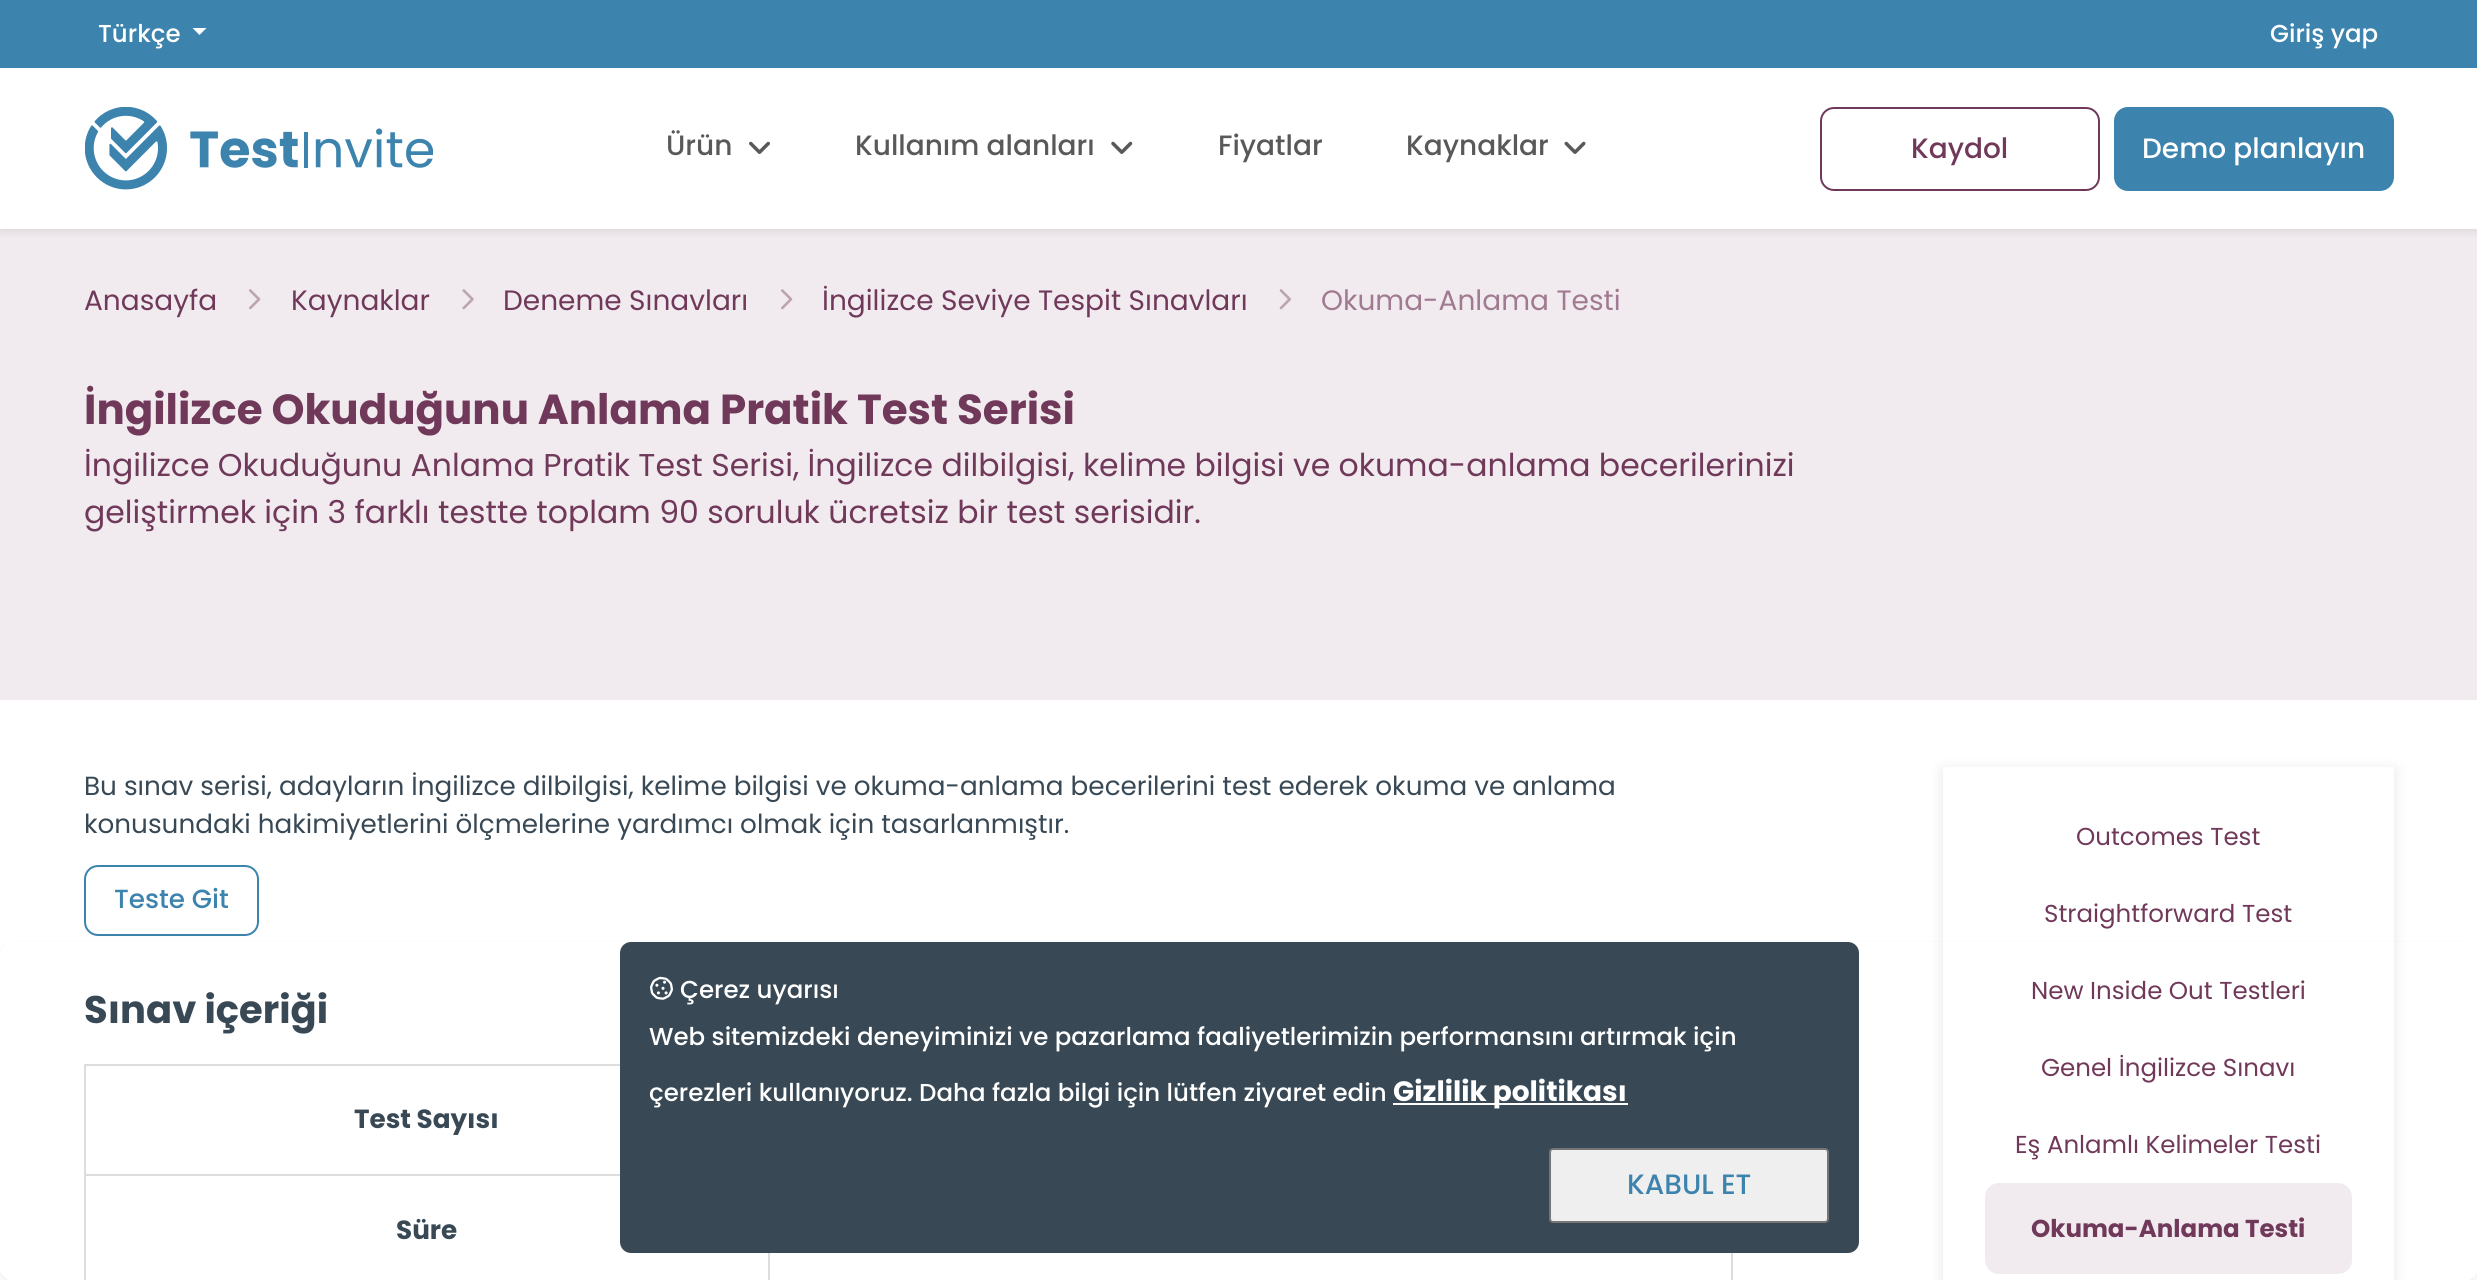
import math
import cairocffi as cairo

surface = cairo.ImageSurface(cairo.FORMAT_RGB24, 2477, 1280)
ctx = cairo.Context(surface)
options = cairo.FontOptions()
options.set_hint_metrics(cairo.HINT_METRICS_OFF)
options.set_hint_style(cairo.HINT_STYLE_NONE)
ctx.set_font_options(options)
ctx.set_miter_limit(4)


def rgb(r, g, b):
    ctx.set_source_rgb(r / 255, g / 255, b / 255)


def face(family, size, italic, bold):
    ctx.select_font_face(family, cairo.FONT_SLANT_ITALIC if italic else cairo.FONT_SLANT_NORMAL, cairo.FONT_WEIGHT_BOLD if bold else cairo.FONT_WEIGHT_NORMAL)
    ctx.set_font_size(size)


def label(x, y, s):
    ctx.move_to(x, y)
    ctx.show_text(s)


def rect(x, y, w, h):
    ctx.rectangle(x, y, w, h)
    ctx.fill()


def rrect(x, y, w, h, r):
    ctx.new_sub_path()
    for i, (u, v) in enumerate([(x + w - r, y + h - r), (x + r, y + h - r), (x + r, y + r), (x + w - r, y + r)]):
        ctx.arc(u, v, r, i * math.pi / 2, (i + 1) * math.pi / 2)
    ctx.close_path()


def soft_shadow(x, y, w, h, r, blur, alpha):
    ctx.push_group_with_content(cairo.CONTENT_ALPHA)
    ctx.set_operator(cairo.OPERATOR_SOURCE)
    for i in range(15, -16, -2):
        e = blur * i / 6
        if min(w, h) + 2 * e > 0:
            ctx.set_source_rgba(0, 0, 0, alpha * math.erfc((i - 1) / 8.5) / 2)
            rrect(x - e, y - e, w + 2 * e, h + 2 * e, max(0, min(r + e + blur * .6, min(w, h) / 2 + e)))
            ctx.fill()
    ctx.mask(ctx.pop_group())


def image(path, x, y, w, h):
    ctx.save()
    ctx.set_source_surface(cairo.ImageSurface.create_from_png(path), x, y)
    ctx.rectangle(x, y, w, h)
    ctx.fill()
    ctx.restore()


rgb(255, 255, 255)
ctx.paint()
rgb(60, 131, 173)
rect(0, 0, 2477, 68)
face('Poppins Medium', 24.5, 0, 0)
rgb(255, 255, 255)
label(98, 42, 'Türkçe')
ctx.new_path()
ctx.move_to(192.5, 28)
ctx.line_to(206.5, 28)
ctx.line_to(199.5, 35)
ctx.close_path()
ctx.fill()
label(2270, 42, 'Giriş yap')
rgb(241, 235, 239)
rect(0, 229, 2477, 471)
rgb(0, 0, 0)
soft_shadow(0, 72, 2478, 161, 0, 3.5, 0.07)
rgb(255, 255, 255)
rect(0, 68, 2477, 161)
image('image0.png', 85, 107, 348, 83)
face('Poppins Medium', 28, 0, 0)
rgb(89, 89, 89)
label(666, 155, 'Ürün')
image('image1.png', 749, 141, 21, 13)
label(855, 155, 'Kullanım alanları')
image('image2.png', 1111, 141, 22, 13)
label(1218, 155, 'Fiyatlar')
label(1406, 155, 'Kaynaklar')
image('image3.png', 1564, 141, 22, 13)
rrect(1821, 108, 278, 82, 13)
rgb(112, 57, 90)
ctx.stroke()
label(1911, 158, 'Kaydol')
rgb(60, 131, 173)
rrect(2114, 107, 280, 84, 14)
ctx.fill()
rgb(255, 255, 255)
label(2142, 158, 'Demo planlayın')
face('Poppins', 28, 0, 0)
rgb(112, 57, 90)
label(84, 310, 'Anasayfa')
image('image4.png', 249, 289, 12, 21)
label(291, 310, 'Kaynaklar')
image('image5.png', 462, 289, 12, 21)
label(503, 310, 'Deneme Sınavları')
image('image4.png', 781, 289, 12, 21)
label(822, 310, 'İngilizce Seviye Tespit Sınavları')
image('image6.png', 1279, 289, 12, 21)
rgb(159, 122, 144)
label(1321, 310, 'Okuma-Anlama Testi')
face('Poppins', 42, 0, 1)
rgb(112, 57, 90)
label(84, 424, 'İngilizce Okuduğunu Anlama Pratik Test Serisi')
face('Poppins', 31.5, 0, 0)
label(84, 476, 'İngilizce Okuduğunu Anlama Pratik Test Serisi, İngilizce dilbilgisi, kelime bilgisi ve okuma-anlama becerilerinizi')
label(84, 523, 'geliştirmek için 3 farklı testte toplam 90 soruluk ücretsiz bir test serisidir.')
face('Poppins', 26.25, 0, 0)
rgb(56, 73, 85)
label(84, 795, 'Bu sınav serisi, adayların İngilizce dilbilgisi, kelime bilgisi ve okuma-anlama becerilerini test ederek okuma ve anlama')
label(84, 833, 'konusundaki hakimiyetlerini ölçmelerine yardımcı olmak için tasarlanmıştır.')
rrect(85, 866, 173, 69, 13)
rgb(60, 131, 173)
ctx.stroke()
face('Poppins Medium', 26.25, 0, 0)
label(114, 908, 'Teste Git')
face('Poppins', 38.5, 0, 1)
rgb(56, 73, 85)
label(84, 1023, 'Sınav içeriği')
rgb(221, 221, 221)
rect(84, 1064, 536, 2)
rect(84, 1174, 536, 2)
rect(84, 1174, 2, 106)
rect(84, 1064, 2, 112)
face('Poppins', 26.25, 0, 1)
rgb(56, 73, 85)
label(354, 1128, 'Test Sayısı')
rgb(221, 221, 221)
rect(1731, 1253, 2, 27)
rgb(56, 73, 85)
label(396, 1239, 'Süre')
rgb(221, 221, 221)
rect(768, 1253, 2, 27)
ctx.save()
ctx.set_fill_rule(cairo.FILL_RULE_EVEN_ODD)
ctx.new_path()
ctx.move_to(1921, 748)
ctx.line_to(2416, 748)
ctx.line_to(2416, 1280)
ctx.line_to(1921, 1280)
ctx.close_path()
ctx.move_to(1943, 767)
ctx.line_to(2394, 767)
ctx.line_to(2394, 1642)
ctx.line_to(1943, 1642)
ctx.close_path()
ctx.clip()
rgb(0, 0, 0)
soft_shadow(1943, 770, 451, 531, 0, 7, 0.1)
ctx.restore()
face('Poppins', 24.5, 0, 0)
rgb(112, 57, 90)
label(2076, 845, 'Outcomes Test')
label(2044, 922, 'Straightforward Test')
label(2031, 999, 'New Inside Out Testleri')
label(2041, 1076, 'Genel İngilizce Sınavı')
label(2015, 1153, 'Eş Anlamlı Kelimeler Testi')
rgb(241, 235, 239)
rrect(1985, 1183, 367, 91, 14)
ctx.fill()
face('Poppins', 24.5, 0, 1)
rgb(112, 57, 90)
label(2031, 1237, 'Okuma-Anlama Testi')
ctx.save()
ctx.set_fill_rule(cairo.FILL_RULE_EVEN_ODD)
ctx.new_path()
ctx.move_to(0, 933)
ctx.line_to(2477, 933)
ctx.line_to(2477, 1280)
ctx.line_to(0, 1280)
ctx.close_path()
ctx.move_to(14, 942)
ctx.line_to(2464, 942)
ctx.curve_to(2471.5, 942, 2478, 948.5, 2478, 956)
ctx.line_to(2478, 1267)
ctx.curve_to(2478, 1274.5, 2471.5, 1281, 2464, 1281)
ctx.line_to(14, 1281)
ctx.curve_to(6.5, 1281, 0, 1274.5, 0, 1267)
ctx.line_to(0, 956)
ctx.curve_to(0, 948.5, 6.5, 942, 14, 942)
ctx.close_path()
ctx.clip()
rgb(0, 0, 0)
soft_shadow(0, 945, 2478, 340, 14, 3.5, 0.07)
ctx.restore()
rgb(56, 73, 85)
rrect(620, 942, 1239, 311, 11)
ctx.fill()
image('image7.png', 650, 976, 23, 24)
face('Poppins Medium', 24.5, 0, 0)
rgb(255, 255, 255)
label(680, 998, 'Çerez uyarısı')
label(649, 1045, 'Web sitemizdeki deneyiminizi ve pazarlama faaliyetlerimizin performansını artırmak için')
label(649, 1101, 'çerezleri kullanıyoruz. Daha fazla bilgi için lütfen ziyaret edin')
rect(1393, 1103, 235, 2)
face('Poppins', 28, 0, 1)
label(1393, 1101, 'Gizlilik politikası')
rgb(239, 239, 239)
rrect(1550, 1149, 278, 73, 3)
ctx.fill_preserve()
rgb(118, 118, 118)
ctx.stroke()
face('Poppins Medium', 28, 0, 0)
rgb(60, 131, 173)
label(1627, 1194, 'KABUL ET')
surface.write_to_png('render.png')
